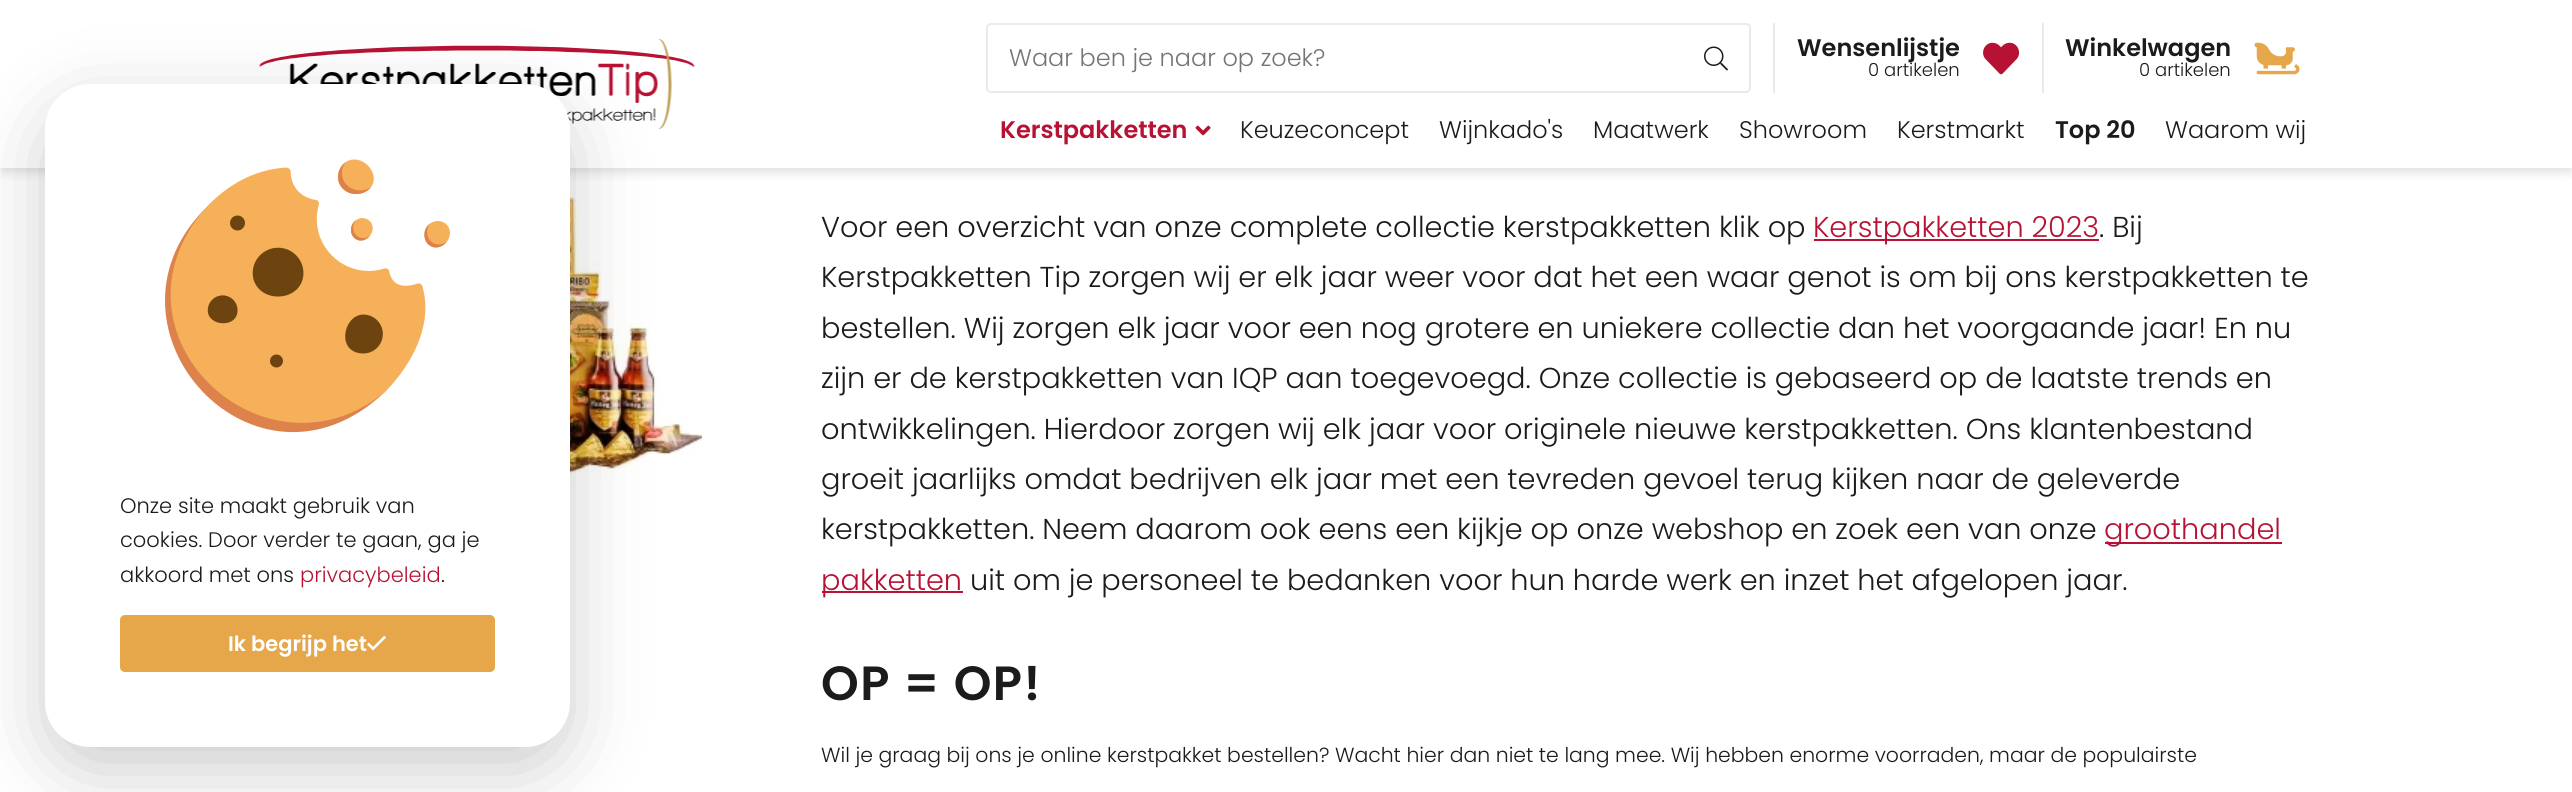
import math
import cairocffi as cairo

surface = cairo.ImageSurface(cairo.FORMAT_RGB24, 2572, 792)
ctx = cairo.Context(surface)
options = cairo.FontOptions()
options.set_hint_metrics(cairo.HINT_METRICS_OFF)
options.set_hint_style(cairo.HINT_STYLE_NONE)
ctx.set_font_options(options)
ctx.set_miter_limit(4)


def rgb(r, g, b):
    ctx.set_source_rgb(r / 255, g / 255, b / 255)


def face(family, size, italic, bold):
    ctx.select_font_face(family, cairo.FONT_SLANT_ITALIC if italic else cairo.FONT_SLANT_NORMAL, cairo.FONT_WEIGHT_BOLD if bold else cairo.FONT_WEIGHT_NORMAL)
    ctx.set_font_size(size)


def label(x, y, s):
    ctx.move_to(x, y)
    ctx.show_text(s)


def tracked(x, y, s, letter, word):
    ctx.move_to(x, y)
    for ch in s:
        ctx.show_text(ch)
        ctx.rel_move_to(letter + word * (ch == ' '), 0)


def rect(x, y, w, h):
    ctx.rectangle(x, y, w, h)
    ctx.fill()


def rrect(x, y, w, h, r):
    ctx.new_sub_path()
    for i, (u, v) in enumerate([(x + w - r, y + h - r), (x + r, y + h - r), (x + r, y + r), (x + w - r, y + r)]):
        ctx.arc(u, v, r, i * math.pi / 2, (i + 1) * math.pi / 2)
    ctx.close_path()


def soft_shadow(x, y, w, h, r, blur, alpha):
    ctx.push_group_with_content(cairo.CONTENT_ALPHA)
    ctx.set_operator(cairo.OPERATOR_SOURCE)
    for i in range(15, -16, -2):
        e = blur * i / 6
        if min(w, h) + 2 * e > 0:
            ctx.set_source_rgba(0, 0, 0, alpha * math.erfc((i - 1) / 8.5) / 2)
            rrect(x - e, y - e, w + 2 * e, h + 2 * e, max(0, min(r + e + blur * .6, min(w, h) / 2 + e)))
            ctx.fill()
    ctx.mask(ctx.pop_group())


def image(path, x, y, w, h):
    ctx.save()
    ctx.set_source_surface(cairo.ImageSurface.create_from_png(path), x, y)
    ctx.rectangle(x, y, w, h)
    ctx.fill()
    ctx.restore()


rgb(255, 255, 255)
ctx.paint()
rgb(0, 0, 0)
soft_shadow(3, 9, 2567, 162, 0, 6, 0.15)
rgb(255, 255, 255)
rect(0, 0, 2572, 168)
image('image0.png', 259, 39, 436, 90)
rrect(987, 24, 763, 68, 4)
rgb(234, 234, 234)
ctx.stroke()
face('Poppins Light', 24, 0, 0)
rgb(117, 117, 117)
label(1009, 66, 'Waar ben je naar op zoek?')
image('image1.png', 1704, 46, 24, 25)
rgb(234, 234, 234)
rect(1773, 23, 2, 70)
face('Poppins SemiBold', 24, 0, 0)
rgb(27, 27, 27)
label(1797, 56, 'Wensenlijstje')
face('Poppins Light', 18, 0, 0)
label(1868, 76, '0 artikelen')
image('image2.png', 1983, 42, 37, 33)
rgb(234, 234, 234)
rect(2042, 23, 2, 70)
face('Poppins SemiBold', 24, 0, 0)
rgb(27, 27, 27)
label(2065, 56, 'Winkelwagen')
face('Poppins Light', 18, 0, 0)
label(2139, 76, '0 artikelen')
image('image3.png', 2254, 42, 46, 33)
face('Poppins SemiBold', 24, 0, 0)
rgb(183, 18, 52)
label(1000, 138, 'Kerstpakketten')
image('image4.png', 1195, 125, 16, 11)
face('Poppins Light', 24, 0, 0)
rgb(27, 27, 27)
label(1240, 138, 'Keuzeconcept')
label(1439, 138, 'Wijnkado\'s')
label(1593, 138, 'Maatwerk')
label(1739, 138, 'Showroom')
label(1897, 138, 'Kerstmarkt')
face('Poppins SemiBold', 24, 0, 0)
label(2055, 138, 'Top 20')
face('Poppins Light', 24, 0, 0)
label(2165, 138, 'Waarom wij')
image('image7.png', 570, 193, 132, 298)
rgb(0, 0, 0)
soft_shadow(45, 107, 525, 663, 45, 37.5, 0.2)
rgb(255, 255, 255)
rrect(45, 84, 525, 663, 45)
ctx.fill()
image('image5.png', 165, 159, 285, 274)
face('Poppins Light', 21, 0, 0)
rgb(27, 27, 27)
label(120, 513, 'Onze site maakt gebruik van')
label(120, 547, 'cookies. Door verder te gaan, ga je')
label(120, 582, 'akkoord met ons')
rgb(183, 18, 52)
label(300, 582, 'privacybeleid')
rgb(27, 27, 27)
label(441, 582, '.')
rgb(229, 167, 74)
rrect(120, 615, 375, 57, 5)
ctx.fill()
face('Poppins SemiBold', 21, 0, 0)
rgb(255, 255, 255)
label(228, 651, 'Ik begrijp het')
image('image6.png', 367, 635, 19, 16)
face('Poppins Light', 28.8, 0, 0)
rgb(27, 27, 27)
label(821, 237, 'Voor een overzicht van onze complete collectie kerstpakketten klik op')
rgb(183, 18, 52)
rect(1814, 239, 285, 2)
label(1813, 237, 'Kerstpakketten 2023')
rgb(27, 27, 27)
label(2099, 237, '. Bij')
label(821, 287, 'Kerstpakketten Tip zorgen wij er elk jaar weer voor dat het een waar genot is om bij ons kerstpakketten te')
label(821, 338, 'bestellen. Wij zorgen elk jaar voor een nog grotere en uniekere collectie dan het voorgaande jaar! En nu')
label(821, 388, 'zijn er de kerstpakketten van IQP aan toegevoegd. Onze collectie is gebaseerd op de laatste trends en')
label(821, 439, 'ontwikkelingen. Hierdoor zorgen wij elk jaar voor originele nieuwe kerstpakketten. Ons klantenbestand')
label(821, 489, 'groeit jaarlijks omdat bedrijven elk jaar met een tevreden gevoel terug kijken naar de geleverde')
label(821, 539, 'kerstpakketten. Neem daarom ook eens een kijkje op onze webshop en zoek een van onze')
rgb(183, 18, 52)
rect(2105, 542, 177, 2)
label(2104, 539, 'groothandel')
rect(822, 591, 141, 2)
label(821, 590, 'pakketten')
rgb(27, 27, 27)
label(970, 590, 'uit om je personeel te bedanken voor hun harde werk en inzet het afgelopen jaar.')
face('Poppins SemiBold', 48, 0, 0)
tracked(821, 700, 'OP = OP!', 1.5, 0)
face('Poppins Light', 20.4, 0, 0)
label(821, 762, 'Wil je graag bij ons je online kerstpakket bestellen? Wacht hier dan niet te lang mee. Wij hebben enorme voorraden, maar de populairste')
surface.write_to_png('render.png')
